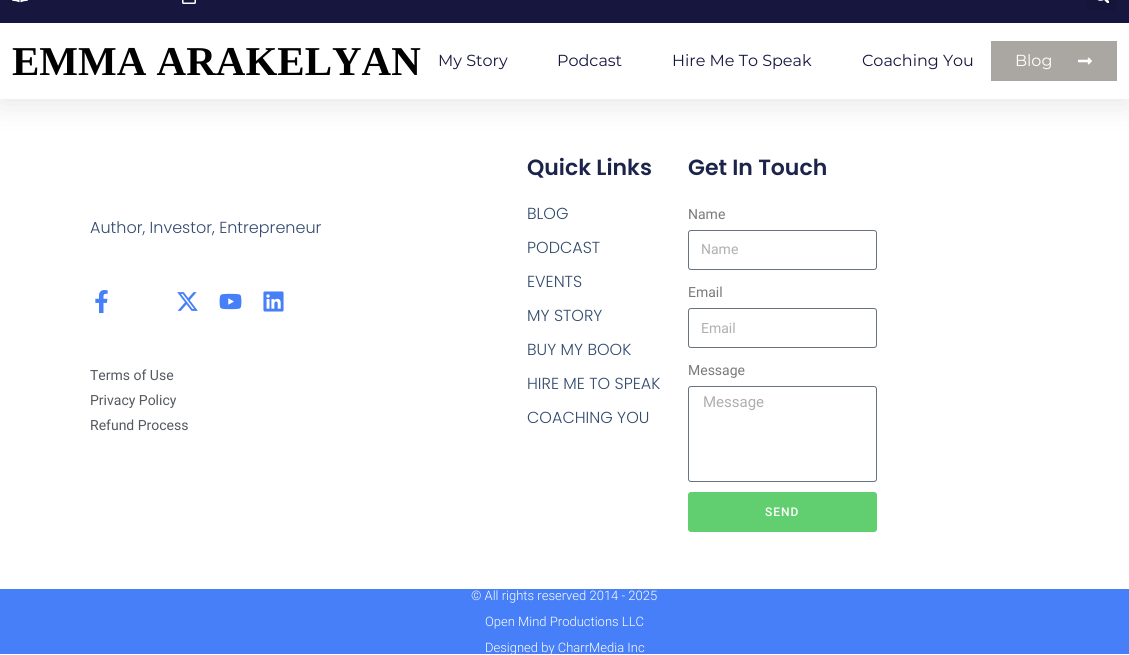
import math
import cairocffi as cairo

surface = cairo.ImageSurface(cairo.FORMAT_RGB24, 1129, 655)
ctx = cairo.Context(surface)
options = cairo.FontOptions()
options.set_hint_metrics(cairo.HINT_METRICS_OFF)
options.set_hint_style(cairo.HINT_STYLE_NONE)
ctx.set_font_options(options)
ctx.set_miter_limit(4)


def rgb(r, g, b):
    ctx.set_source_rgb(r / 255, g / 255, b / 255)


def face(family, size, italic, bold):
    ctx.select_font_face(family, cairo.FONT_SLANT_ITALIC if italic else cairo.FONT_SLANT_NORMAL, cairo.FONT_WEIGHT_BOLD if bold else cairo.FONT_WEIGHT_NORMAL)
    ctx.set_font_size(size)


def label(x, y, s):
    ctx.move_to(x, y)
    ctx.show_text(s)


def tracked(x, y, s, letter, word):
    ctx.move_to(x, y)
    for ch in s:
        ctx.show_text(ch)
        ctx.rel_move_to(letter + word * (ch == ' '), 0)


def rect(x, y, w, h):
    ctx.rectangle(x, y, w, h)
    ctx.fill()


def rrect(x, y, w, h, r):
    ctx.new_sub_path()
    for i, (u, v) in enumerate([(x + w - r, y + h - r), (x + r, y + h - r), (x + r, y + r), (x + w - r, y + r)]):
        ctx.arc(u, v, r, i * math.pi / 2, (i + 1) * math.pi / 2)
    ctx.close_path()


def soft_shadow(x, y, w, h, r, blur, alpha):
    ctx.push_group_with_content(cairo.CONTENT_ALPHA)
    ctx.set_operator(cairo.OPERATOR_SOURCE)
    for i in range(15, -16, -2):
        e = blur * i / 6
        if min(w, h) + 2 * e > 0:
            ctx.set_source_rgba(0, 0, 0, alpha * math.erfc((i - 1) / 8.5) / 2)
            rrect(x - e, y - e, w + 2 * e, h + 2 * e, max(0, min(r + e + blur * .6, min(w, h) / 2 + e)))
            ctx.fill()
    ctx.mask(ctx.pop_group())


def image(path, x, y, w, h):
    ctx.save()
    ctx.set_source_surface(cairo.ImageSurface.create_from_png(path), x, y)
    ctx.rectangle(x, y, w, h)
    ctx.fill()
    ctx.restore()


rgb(255, 255, 255)
ctx.paint()
rgb(0, 0, 0)
soft_shadow(0, -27, 1129, 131, 0, 15, 0.1)
rgb(22, 22, 63)
rect(0, 0, 1129, 23)
image('image0.png', 12, 0, 16, 3)
image('image1.png', 182, 0, 14, 4)
rgb(21, 21, 60)
rrect(1086, -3, 31, 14, 3)
ctx.fill()
image('image2.png', 1097, 0, 12, 3)
rgb(255, 255, 255)
rect(0, 23, 1129, 76)
face('Liberation Serif', 41, 0, 1)
rgb(0, 0, 0)
label(12, 75, 'EMMA ARAKELYAN')
face('Montserrat', 16, 0, 0)
rgb(22, 22, 63)
label(438, 66, 'My Story')
label(557, 66, 'Podcast')
label(672, 66, 'Hire Me To Speak')
label(862, 66, 'Coaching You')
rgb(170, 167, 162)
rect(991, 41, 126, 40)
rgb(255, 255, 255)
label(1015, 66, 'Blog')
image('image3.png', 1078, 57, 14, 8)
face('Poppins Light', 16, 0, 0)
rgb(50, 74, 109)
label(90, 233, 'Author, Investor, Entrepreneur')
image('image4.png', 95, 290, 13, 23)
image('image5.png', 177, 292, 21, 19)
image('image6.png', 219, 293, 23, 17)
image('image7.png', 263, 291, 21, 21)
face('Roboto', 14, 0, 0)
rgb(84, 89, 95)
label(90, 380, 'Terms of Use')
label(90, 405, 'Privacy Policy')
label(90, 430, 'Refund Process')
face('Poppins SemiBold', 22, 0, 0)
rgb(28, 36, 75)
label(527, 175, 'Quick Links')
face('Poppins Light', 16, 0, 0)
rgb(50, 74, 109)
label(527, 219, 'BLOG')
label(527, 253, 'PODCAST')
label(527, 287, 'EVENTS')
label(527, 321, 'MY STORY')
label(527, 355, 'BUY MY BOOK')
label(527, 389, 'HIRE ME TO SPEAK')
label(527, 423, 'COACHING YOU')
face('Poppins SemiBold', 22, 0, 0)
rgb(28, 36, 75)
label(688, 175, 'Get In Touch')
face('Roboto', 14, 0, 0)
rgb(122, 122, 122)
label(688, 219, 'Name')
rrect(688.5, 230.5, 188, 39, 2.5)
rgb(105, 114, 125)
ctx.set_line_width(1)
ctx.stroke()
rgb(175, 175, 175)
label(701, 254, 'Name')
rgb(122, 122, 122)
label(688, 297, 'Email')
rrect(688.5, 308.5, 188, 39, 2.5)
rgb(105, 114, 125)
ctx.stroke()
rgb(175, 175, 175)
label(701, 333, 'Email')
rgb(122, 122, 122)
label(688, 375, 'Message')
rrect(688.5, 386.5, 188, 95, 2.5)
rgb(105, 114, 125)
ctx.stroke()
face('Roboto', 15, 0, 0)
rgb(175, 175, 175)
label(703, 407, 'Message')
rgb(97, 206, 112)
rrect(688, 492, 189, 40, 3)
ctx.fill()
face('Roboto Medium', 12, 0, 0)
rgb(255, 255, 255)
tracked(765, 516, 'SEND', 1, 0)
rgb(70, 127, 247)
rect(0, 589, 1129, 65)
face('Roboto Light', 13, 0, 0)
rgb(255, 255, 255)
label(471, 600, '© All rights reserved 2014 - 2025')
label(485, 626, 'Open Mind Productions LLC')
label(485, 652, 'Designed by CharrMedia Inc')
surface.write_to_png('render.png')
